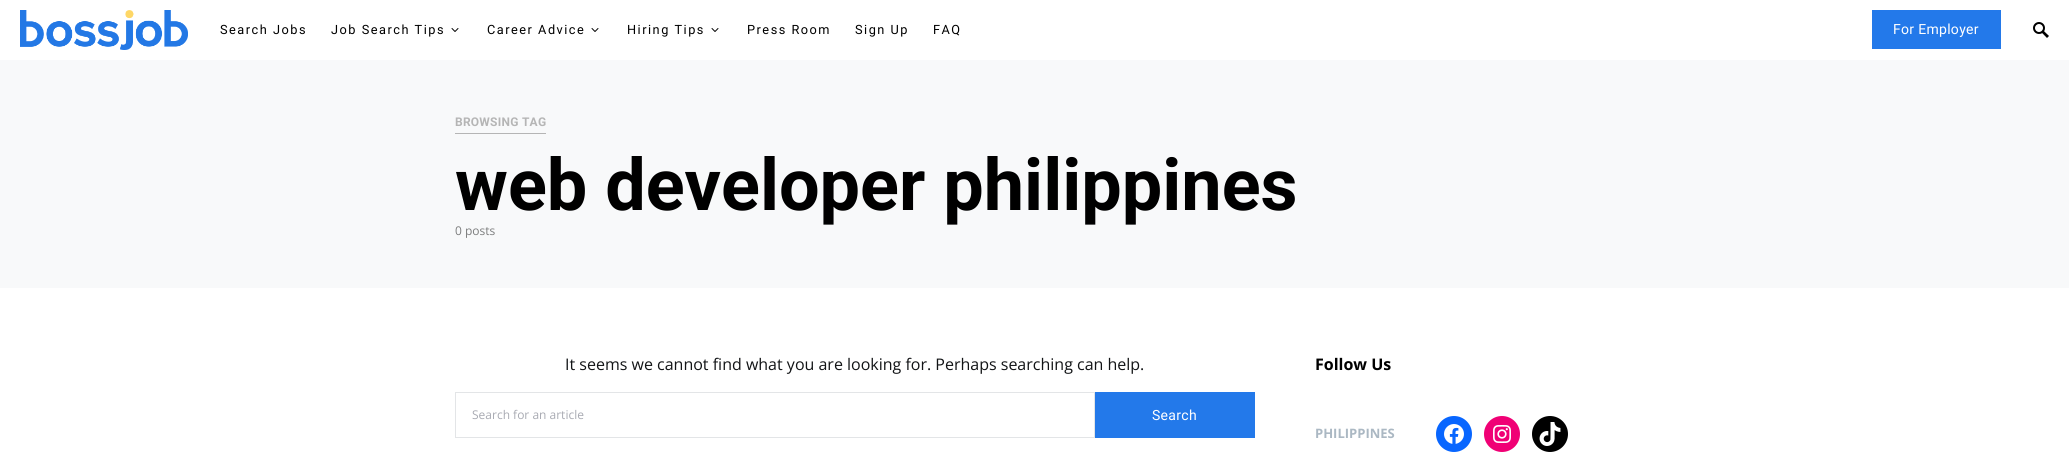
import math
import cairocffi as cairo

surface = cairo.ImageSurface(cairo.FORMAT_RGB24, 2069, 455)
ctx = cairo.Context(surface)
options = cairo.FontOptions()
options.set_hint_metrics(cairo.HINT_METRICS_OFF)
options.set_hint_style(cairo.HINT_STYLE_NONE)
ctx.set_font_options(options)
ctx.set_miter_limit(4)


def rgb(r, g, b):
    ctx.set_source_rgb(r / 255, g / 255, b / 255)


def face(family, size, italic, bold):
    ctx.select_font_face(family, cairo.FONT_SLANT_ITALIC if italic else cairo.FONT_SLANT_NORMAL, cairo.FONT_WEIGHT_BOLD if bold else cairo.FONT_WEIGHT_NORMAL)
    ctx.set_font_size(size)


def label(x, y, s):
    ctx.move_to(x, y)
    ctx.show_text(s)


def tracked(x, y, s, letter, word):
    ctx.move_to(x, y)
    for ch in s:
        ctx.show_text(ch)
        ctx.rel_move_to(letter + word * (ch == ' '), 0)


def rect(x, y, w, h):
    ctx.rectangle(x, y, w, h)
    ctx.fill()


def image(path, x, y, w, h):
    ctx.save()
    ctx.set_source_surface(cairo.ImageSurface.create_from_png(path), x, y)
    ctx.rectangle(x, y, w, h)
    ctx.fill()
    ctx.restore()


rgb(255, 255, 255)
ctx.paint()
image('image0.png', 20, 10, 168, 40)
face('Roboto', 12.75, 0, 0)
rgb(0, 0, 0)
tracked(220, 34, 'Search Jobs', 1.5, 0)
tracked(331, 34, 'Job Search Tips', 1.5, 0)
image('image1.png', 451, 28, 8, 4)
tracked(487, 34, 'Career Advice', 1.5, 0)
image('image1.png', 591, 28, 8, 4)
tracked(627, 34, 'Hiring Tips', 1.5, 0)
image('image1.png', 711, 28, 8, 4)
tracked(747, 34, 'Press Room', 1.5, 0)
tracked(855, 34, 'Sign Up', 1.5, 0)
tracked(933, 34, 'FAQ', 1.5, 0)
rgb(35, 121, 234)
rect(1872, 10, 129, 39)
face('Roboto', 14, 0, 0)
rgb(255, 255, 255)
tracked(1893, 34, 'For Employer', 0.3, 0)
image('image2.png', 2033, 22, 16, 16)
rgb(248, 249, 250)
rect(0, 60, 2069, 228)
face('Roboto', 12, 0, 1)
rgb(181, 181, 181)
tracked(455, 126, 'BROWSING TAG', 0.25, 0)
rect(455, 133, 91, 1)
face('Roboto', 72, 0, 1)
rgb(0, 0, 0)
label(455, 210, 'web developer philippines')
face('Open Sans', 12, 0, 0)
rgb(124, 125, 125)
label(455, 235, '0 posts')
face('Open Sans', 16, 0, 0)
rgb(18, 20, 22)
label(565, 370, 'It seems we cannot find what you are looking for. Perhaps searching can help.')
ctx.rectangle(455.5, 392.5, 639, 45)
rgb(227, 229, 231)
ctx.set_line_width(1)
ctx.stroke()
face('Open Sans', 12, 0, 0)
rgb(168, 170, 178)
label(472, 419, 'Search for an article')
rgb(35, 121, 234)
rect(1095, 392, 160, 46)
face('Roboto', 14, 0, 0)
rgb(255, 255, 255)
tracked(1152, 420, 'Search', 0.3, 0)
face('Open Sans', 16, 0, 1)
rgb(0, 0, 0)
label(1315, 370, 'Follow Us')
face('Open Sans', 13, 0, 1)
rgb(171, 184, 195)
label(1315, 438, 'PHILIPPINES')
rgb(8, 102, 255)
ctx.new_path()
ctx.arc(1454, 434, 18, 0, 2 * math.pi)
ctx.fill()
image('image3.png', 1444, 424, 20, 20)
rgb(240, 0, 117)
ctx.arc(1502, 434, 18, 0, 2 * math.pi)
ctx.fill()
image('image4.png', 1493, 425, 18, 18)
rgb(0, 0, 0)
ctx.arc(1550, 434, 18, 0, 2 * math.pi)
ctx.fill()
image('image5.png', 1539, 422, 22, 24)
surface.write_to_png('render.png')
